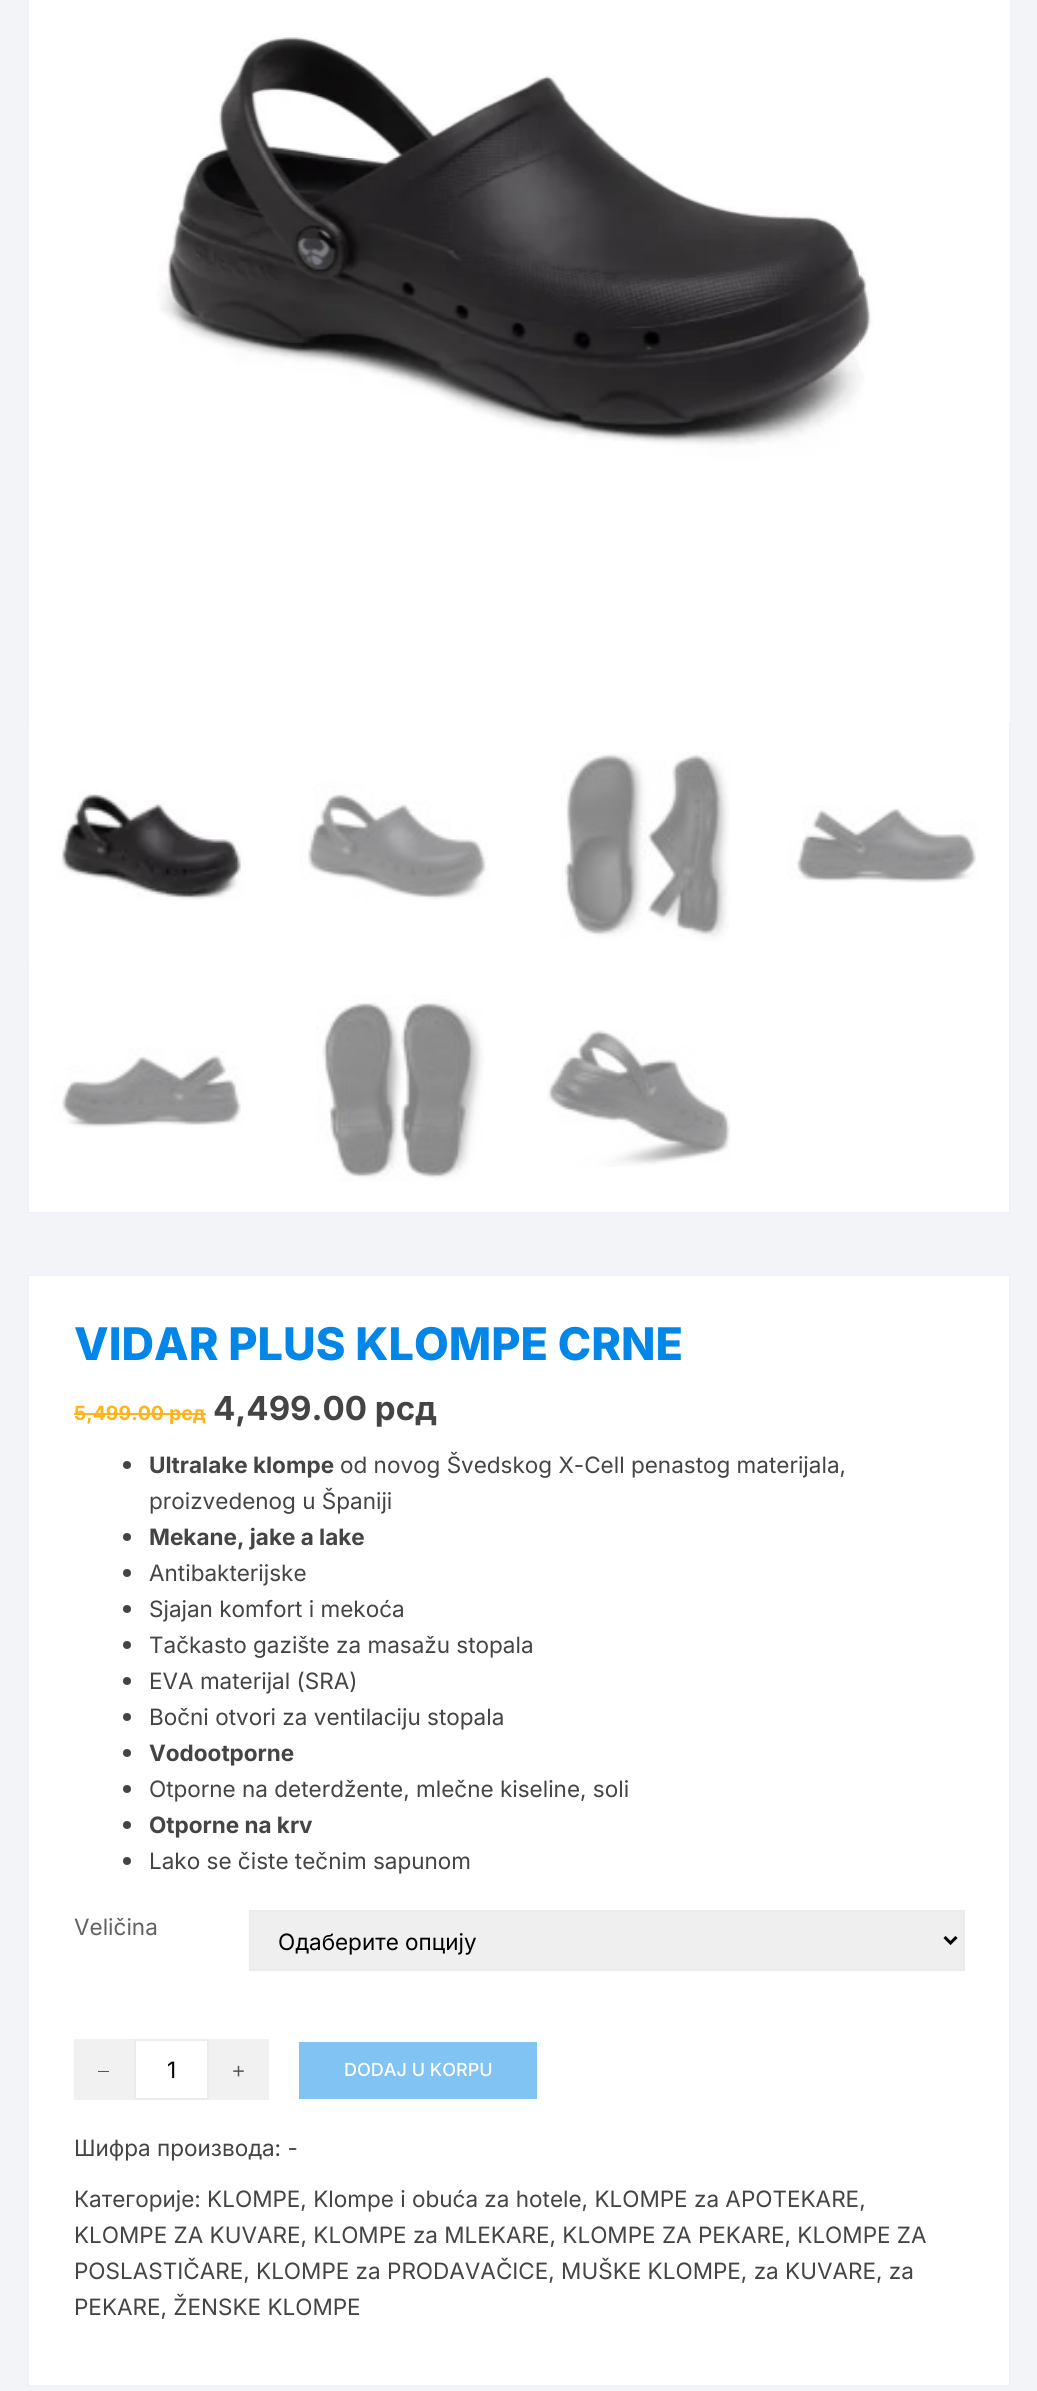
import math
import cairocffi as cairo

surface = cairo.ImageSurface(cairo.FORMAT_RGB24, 1037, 2391)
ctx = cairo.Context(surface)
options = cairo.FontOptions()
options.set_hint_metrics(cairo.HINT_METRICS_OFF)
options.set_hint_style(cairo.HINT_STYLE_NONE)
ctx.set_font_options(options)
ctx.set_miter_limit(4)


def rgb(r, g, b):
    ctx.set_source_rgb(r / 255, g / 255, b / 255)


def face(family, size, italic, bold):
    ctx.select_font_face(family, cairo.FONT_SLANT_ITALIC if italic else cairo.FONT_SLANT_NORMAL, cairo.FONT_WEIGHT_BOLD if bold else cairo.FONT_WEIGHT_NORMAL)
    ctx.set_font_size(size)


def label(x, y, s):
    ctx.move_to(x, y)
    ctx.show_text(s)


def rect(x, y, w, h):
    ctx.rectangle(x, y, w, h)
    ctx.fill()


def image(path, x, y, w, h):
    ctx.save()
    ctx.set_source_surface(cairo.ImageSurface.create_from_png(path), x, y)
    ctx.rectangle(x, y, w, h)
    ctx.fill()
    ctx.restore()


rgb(243, 244, 248)
ctx.paint()
rgb(255, 255, 255)
ctx.rectangle(28, -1, 982, 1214)
ctx.fill_preserve()
rgb(238, 241, 253)
ctx.stroke()
image('image1.png', 1009, 0, 1, 722)
image('image0.png', 157, 0, 853, 722)
image('image2.png', 28, 722, 216, 245)
image('image3.png', 300, 781, 189, 119)
image('image4.png', 561, 752, 169, 189)
image('image5.png', 787, 805, 191, 78)
image('image6.png', 52, 1047, 192, 81)
image('image7.png', 316, 995, 168, 187)
image('image8.png', 546, 1030, 185, 137)
rgb(255, 255, 255)
ctx.rectangle(28, 1275, 982, 1111)
ctx.fill_preserve()
rgb(238, 241, 253)
ctx.stroke()
face('Inter ExtraBold', 45, 0, 0)
rgb(2, 134, 231)
label(74, 1360, 'VIDAR PLUS KLOMPE CRNE')
face('Inter', 19.5, 0, 1)
rgb(255, 180, 29)
label(74, 1420, '5,499.00')
rect(74, 1413, 96, 2)
label(169, 1420, 'рсд')
rect(170, 1413, 36, 2)
face('Inter', 33, 0, 1)
rgb(68, 68, 68)
label(213, 1420, '4,499.00 рсд')
ctx.new_path()
ctx.arc(127, 1465, 4, 0, 2 * math.pi)
ctx.fill()
face('Inter', 22.5, 0, 1)
label(149, 1473, 'Ultralake klompe')
face('Inter', 22.5, 0, 0)
label(340, 1473, 'od novog Švedskog X-Cell penastog materijala,')
label(149, 1509, 'proizvedenog u Španiji')
ctx.new_path()
ctx.arc(127, 1537, 4, 0, 2 * math.pi)
ctx.fill()
face('Inter', 22.5, 0, 1)
label(149, 1545, 'Mekane, jake a lake')
ctx.new_path()
ctx.arc(127, 1573, 4, 0, 2 * math.pi)
ctx.fill()
face('Inter', 22.5, 0, 0)
label(149, 1581, 'Antibakterijske')
ctx.new_path()
ctx.arc(127, 1609, 4, 0, 2 * math.pi)
ctx.fill()
label(149, 1617, 'Sjajan komfort i mekoća')
ctx.new_path()
ctx.arc(127, 1645, 4, 0, 2 * math.pi)
ctx.fill()
label(149, 1653, 'Tačkasto gazište za masažu stopala')
ctx.new_path()
ctx.arc(127, 1681, 4, 0, 2 * math.pi)
ctx.fill()
label(149, 1689, 'EVA materijal (SRA)')
ctx.new_path()
ctx.arc(127, 1717, 4, 0, 2 * math.pi)
ctx.fill()
label(149, 1725, 'Bočni otvori za ventilaciju stopala')
ctx.new_path()
ctx.arc(127, 1753, 4, 0, 2 * math.pi)
ctx.fill()
face('Inter', 22.5, 0, 1)
label(149, 1761, 'Vodootporne')
ctx.new_path()
ctx.arc(127, 1789, 4, 0, 2 * math.pi)
ctx.fill()
face('Inter', 22.5, 0, 0)
label(149, 1797, 'Otporne na deterdžente, mlečne kiseline, soli')
ctx.new_path()
ctx.arc(127, 1825, 4, 0, 2 * math.pi)
ctx.fill()
face('Inter', 22.5, 0, 1)
label(149, 1833, 'Otporne na krv')
ctx.new_path()
ctx.arc(127, 1861, 4, 0, 2 * math.pi)
ctx.fill()
face('Inter', 22.5, 0, 0)
label(149, 1869, 'Lako se čiste tečnim sapunom')
rgb(97, 97, 97)
label(74, 1935, 'Veličina')
rgb(239, 239, 239)
ctx.rectangle(250, 1911, 714, 59)
ctx.fill_preserve()
rgb(236, 236, 236)
ctx.stroke()
ctx.new_path()
ctx.move_to(944.5, 1937)
ctx.line_to(950.5, 1943)
ctx.line_to(956.5, 1937)
rgb(0, 0, 0)
ctx.set_line_width(3)
ctx.stroke()
label(278, 1950, 'Одаберите опцију')
rgb(241, 241, 241)
rect(74, 2039, 60, 61)
rgb(85, 85, 85)
rect(98, 2071, 11, 1)
ctx.rectangle(135, 2040, 73, 59)
rgb(236, 236, 236)
ctx.set_line_width(2)
ctx.stroke()
rgb(0, 0, 0)
label(167, 2078, '1')
rgb(241, 241, 241)
rect(209, 2039, 60, 61)
image('image9.png', 233, 2065, 11, 12)
rgb(129, 195, 243)
rect(299, 2042, 238, 57)
face('Inter Medium', 18, 0, 0)
rgb(255, 255, 255)
label(344, 2076, 'DODAJ U KORPU')
face('Inter', 22.5, 0, 0)
rgb(68, 68, 68)
label(74, 2156, 'Шифра производа: -')
label(74, 2207, 'Категорије: KLOMPE, Klompe i obuća za hotele, KLOMPE za APOTEKARE,')
label(74, 2243, 'KLOMPE ZA KUVARE, KLOMPE za MLEKARE, KLOMPE ZA PEKARE, KLOMPE ZA')
label(74, 2279, 'POSLASTIČARE, KLOMPE za PRODAVAČICE, MUŠKE KLOMPE, za KUVARE, za')
label(74, 2315, 'PEKARE, ŽENSKE KLOMPE')
surface.write_to_png('render.png')
